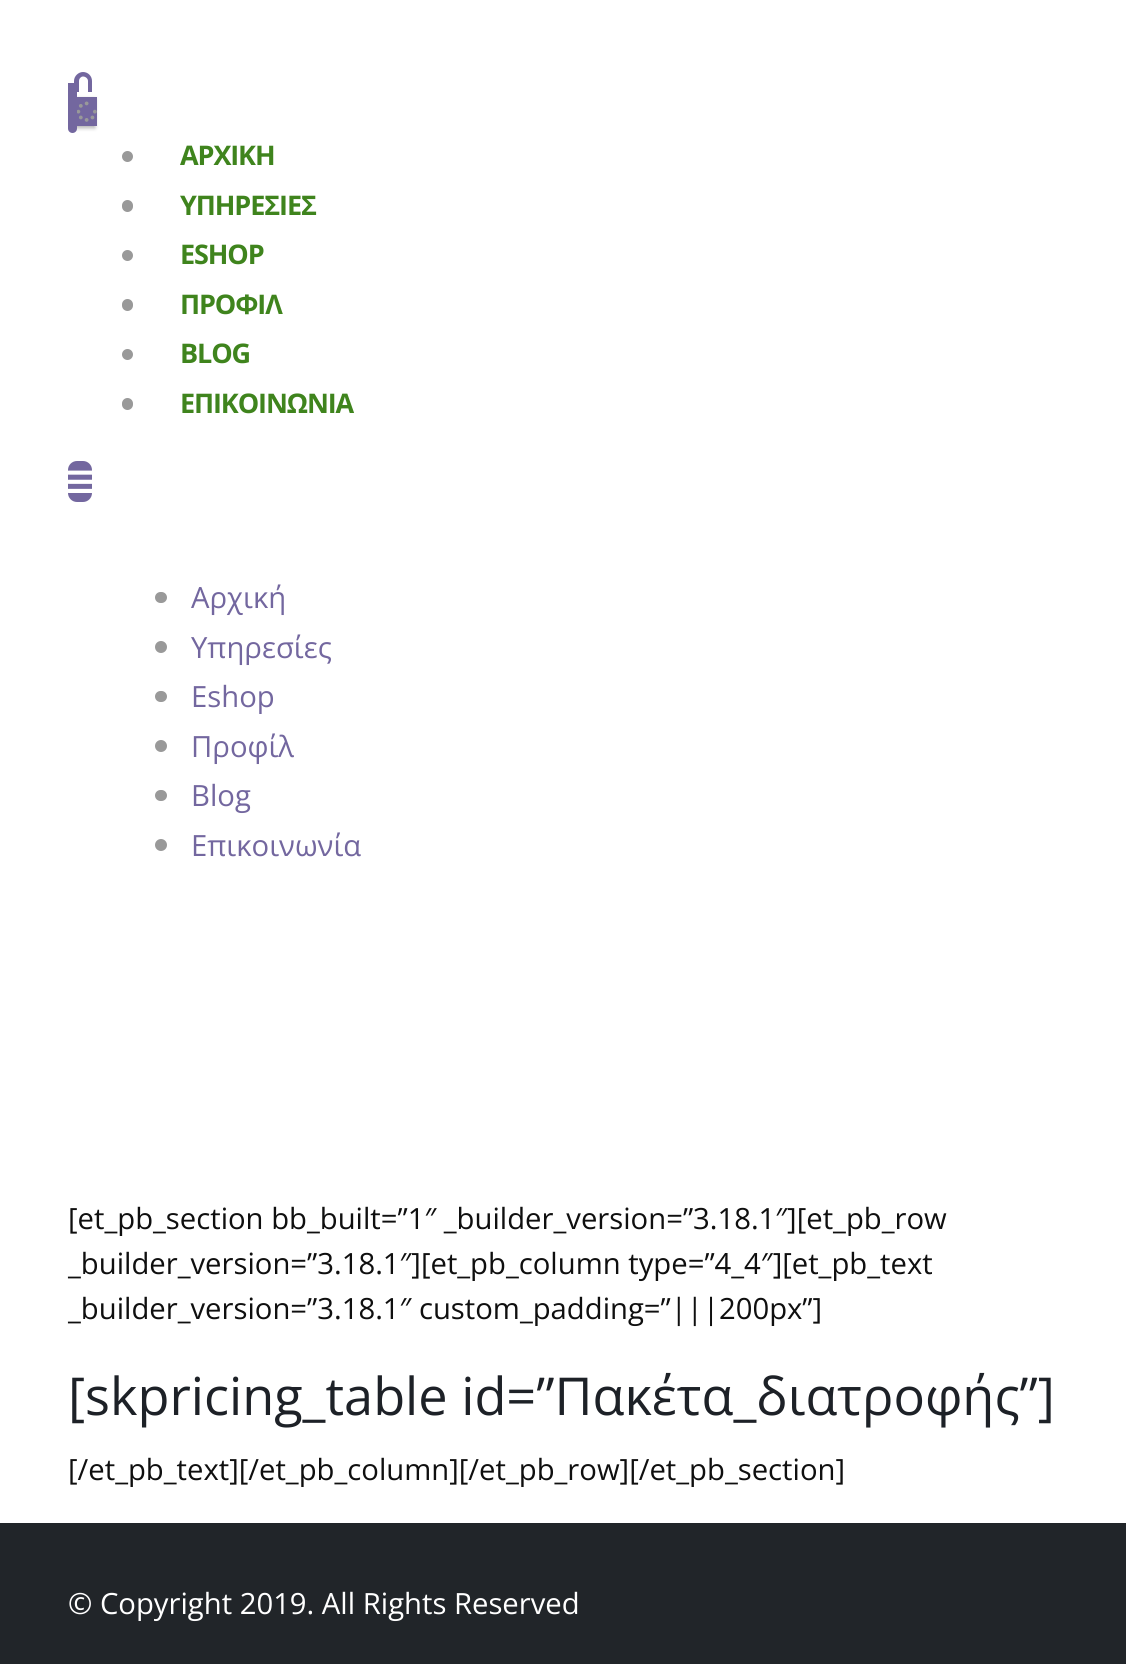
import math
import cairocffi as cairo

surface = cairo.ImageSurface(cairo.FORMAT_RGB24, 1126, 1664)
ctx = cairo.Context(surface)
options = cairo.FontOptions()
options.set_hint_metrics(cairo.HINT_METRICS_OFF)
options.set_hint_style(cairo.HINT_STYLE_NONE)
ctx.set_font_options(options)
ctx.set_miter_limit(4)


def rgb(r, g, b):
    ctx.set_source_rgb(r / 255, g / 255, b / 255)


def face(family, size, italic, bold):
    ctx.select_font_face(family, cairo.FONT_SLANT_ITALIC if italic else cairo.FONT_SLANT_NORMAL, cairo.FONT_WEIGHT_BOLD if bold else cairo.FONT_WEIGHT_NORMAL)
    ctx.set_font_size(size)


def label(x, y, s):
    ctx.move_to(x, y)
    ctx.show_text(s)


def tracked(x, y, s, letter, word):
    ctx.move_to(x, y)
    for ch in s:
        ctx.show_text(ch)
        ctx.rel_move_to(letter + word * (ch == ' '), 0)


def rect(x, y, w, h):
    ctx.rectangle(x, y, w, h)
    ctx.fill()


def rrect(x, y, w, h, r):
    ctx.new_sub_path()
    for i, (u, v) in enumerate([(x + w - r, y + h - r), (x + r, y + h - r), (x + r, y + r), (x + w - r, y + r)]):
        ctx.arc(u, v, r, i * math.pi / 2, (i + 1) * math.pi / 2)
    ctx.close_path()


def soft_shadow(x, y, w, h, r, blur, alpha):
    ctx.push_group_with_content(cairo.CONTENT_ALPHA)
    ctx.set_operator(cairo.OPERATOR_SOURCE)
    for i in range(15, -16, -2):
        e = blur * i / 6
        if min(w, h) + 2 * e > 0:
            ctx.set_source_rgba(0, 0, 0, alpha * math.erfc((i - 1) / 8.5) / 2)
            rrect(x - e, y - e, w + 2 * e, h + 2 * e, max(0, min(r + e + blur * .6, min(w, h) / 2 + e)))
            ctx.fill()
    ctx.mask(ctx.pop_group())


def image(path, x, y, w, h):
    ctx.save()
    ctx.set_source_surface(cairo.ImageSurface.create_from_png(path), x, y)
    ctx.rectangle(x, y, w, h)
    ctx.fill()
    ctx.restore()


rgb(255, 255, 255)
ctx.paint()
rgb(0, 0, 0)
soft_shadow(74, 99, 21, 29, 0, 2, 0.3)
rgb(115, 103, 159)
ctx.new_path()
ctx.move_to(68, 83)
ctx.line_to(77, 83)
ctx.line_to(77, 128.5)
ctx.curve_to(77, 131, 75, 133, 72.5, 133)
ctx.curve_to(70, 133, 68, 131, 68, 128.5)
ctx.close_path()
ctx.fill()
ctx.set_fill_rule(cairo.FILL_RULE_EVEN_ODD)
ctx.new_path()
ctx.move_to(83, 72)
ctx.curve_to(88, 72, 92, 76, 92, 81)
ctx.line_to(92, 92)
ctx.line_to(74, 92)
ctx.line_to(74, 81)
ctx.curve_to(74, 76, 78.5, 72, 83, 72)
ctx.close_path()
ctx.move_to(83, 76.5)
ctx.curve_to(85.5, 76.5, 88, 78.5, 88, 81)
ctx.line_to(88, 92)
ctx.line_to(79, 92)
ctx.line_to(79, 81)
ctx.curve_to(79, 78.5, 81, 76.5, 83, 76.5)
ctx.close_path()
ctx.fill()
rect(77, 97, 20, 29)
image('image0.png', 77, 101, 20, 21)
rgb(153, 153, 153)
ctx.arc(127.5, 156.5, 5.5, 0, 2 * math.pi)
ctx.fill()
face('Open Sans', 27, 0, 1)
rgb(63, 132, 29)
tracked(180, 165, 'ΑΡΧΙΚΗ', -1.1, 0)
rgb(153, 153, 153)
rrect(122, 200, 11, 12, 5.5)
ctx.fill()
rgb(63, 132, 29)
tracked(180, 215, 'ΥΠΗΡΕΣΙΕΣ', -1.1, 0)
rgb(153, 153, 153)
ctx.new_path()
ctx.arc(127.5, 255.5, 5.5, 0, 2 * math.pi)
ctx.fill()
rgb(63, 132, 29)
tracked(180, 264, 'ESHOP', -1.1, 0)
rgb(153, 153, 153)
rrect(122, 299, 11, 12, 5.5)
ctx.fill()
rgb(63, 132, 29)
tracked(180, 314, 'ΠΡΟΦΙΛ', -1.1, 0)
rgb(153, 153, 153)
ctx.new_path()
ctx.arc(127.5, 354.5, 5.5, 0, 2 * math.pi)
ctx.fill()
rgb(63, 132, 29)
tracked(180, 363, 'BLOG', -1.1, 0)
rgb(153, 153, 153)
rrect(122, 398, 11, 12, 5.5)
ctx.fill()
rgb(63, 132, 29)
tracked(180, 413, 'ΕΠΙΚΟΙΝΩΝΙΑ', -1.1, 0)
rgb(115, 103, 159)
rrect(68, 461, 24, 41, 9)
ctx.fill()
image('image1.png', 68, 470, 24, 23)
rgb(153, 153, 153)
rrect(155, 592, 12, 11, 5.5)
ctx.fill()
face('Open Sans', 29.25, 0, 0)
rgb(115, 103, 159)
label(191, 608, 'Αρχική')
rgb(153, 153, 153)
ctx.new_path()
ctx.arc(161, 647, 6, 0, 2 * math.pi)
ctx.fill()
rgb(115, 103, 159)
label(191, 658, 'Υπηρεσίες')
rgb(153, 153, 153)
rrect(155, 691, 12, 11, 5.5)
ctx.fill()
rgb(115, 103, 159)
label(191, 707, 'Eshop')
rgb(153, 153, 153)
ctx.new_path()
ctx.arc(161, 746, 6, 0, 2 * math.pi)
ctx.fill()
rgb(115, 103, 159)
label(191, 757, 'Προφίλ')
rgb(153, 153, 153)
rrect(155, 790, 12, 11, 5.5)
ctx.fill()
rgb(115, 103, 159)
label(191, 806, 'Blog')
rgb(153, 153, 153)
ctx.new_path()
ctx.arc(161, 845, 6, 0, 2 * math.pi)
ctx.fill()
rgb(115, 103, 159)
label(191, 856, 'Επικοινωνία')
rgb(15, 15, 15)
label(68, 1229, '[et_pb_section bb_built=”1″ _builder_version=”3.18.1″][et_pb_row')
label(68, 1274, '_builder_version=”3.18.1″][et_pb_column type=”4_4″][et_pb_text')
label(68, 1319, '_builder_version=”3.18.1″ custom_padding=”|||200px”]')
face('Open Sans', 52.25, 0, 0)
rgb(29, 33, 39)
label(68, 1415, '[skpricing_table id=”Πακέτα_διατροφής”]')
face('Open Sans', 29.25, 0, 0)
rgb(15, 15, 15)
label(68, 1480, '[/et_pb_text][/et_pb_column][/et_pb_row][/et_pb_section]')
rgb(33, 37, 41)
rect(0, 1523, 1126, 141)
rgb(255, 255, 255)
label(68, 1614, '© Copyright 2019. All Rights Reserved')
surface.write_to_png('render.png')
